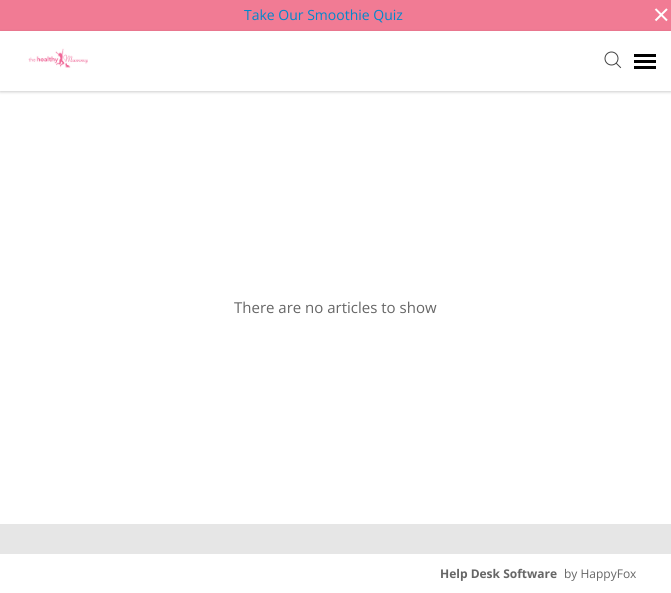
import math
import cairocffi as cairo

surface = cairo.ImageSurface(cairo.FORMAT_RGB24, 671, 593)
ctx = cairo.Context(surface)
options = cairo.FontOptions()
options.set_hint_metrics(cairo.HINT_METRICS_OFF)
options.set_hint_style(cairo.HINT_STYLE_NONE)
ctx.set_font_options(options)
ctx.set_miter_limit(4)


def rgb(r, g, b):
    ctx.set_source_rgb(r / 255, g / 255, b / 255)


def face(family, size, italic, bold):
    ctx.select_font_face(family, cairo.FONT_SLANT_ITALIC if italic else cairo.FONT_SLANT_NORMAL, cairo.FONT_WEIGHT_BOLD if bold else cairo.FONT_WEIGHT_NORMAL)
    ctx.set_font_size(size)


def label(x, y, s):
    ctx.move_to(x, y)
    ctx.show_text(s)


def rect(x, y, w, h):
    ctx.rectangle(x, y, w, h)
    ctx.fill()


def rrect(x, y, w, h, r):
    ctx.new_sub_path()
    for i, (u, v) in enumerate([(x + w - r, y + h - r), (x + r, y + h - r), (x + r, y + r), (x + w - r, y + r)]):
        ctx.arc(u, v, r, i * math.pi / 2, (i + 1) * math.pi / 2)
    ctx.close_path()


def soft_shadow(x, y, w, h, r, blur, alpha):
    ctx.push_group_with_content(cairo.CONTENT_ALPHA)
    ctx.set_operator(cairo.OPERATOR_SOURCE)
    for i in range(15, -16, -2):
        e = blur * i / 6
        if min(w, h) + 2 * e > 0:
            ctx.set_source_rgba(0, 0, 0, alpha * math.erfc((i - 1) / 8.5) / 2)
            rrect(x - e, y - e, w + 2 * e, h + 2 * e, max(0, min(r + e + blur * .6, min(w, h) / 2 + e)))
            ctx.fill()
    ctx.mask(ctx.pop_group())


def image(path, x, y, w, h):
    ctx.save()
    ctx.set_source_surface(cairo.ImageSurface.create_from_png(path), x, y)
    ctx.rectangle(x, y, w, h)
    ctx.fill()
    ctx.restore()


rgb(255, 255, 255)
ctx.paint()
rgb(241, 123, 148)
rect(0, 0, 671, 31)
face('Open Sans', 14, 0, 0)
rgb(0, 136, 204)
label(244, 20, 'Take Our Smoothie Quiz')
ctx.new_path()
ctx.move_to(667, 9)
ctx.line_to(655.5, 20.5)
ctx.move_to(667, 20.5)
ctx.line_to(655.5, 9)
rgb(255, 255, 255)
ctx.stroke()
ctx.save()
ctx.set_fill_rule(cairo.FILL_RULE_EVEN_ODD)
ctx.new_path()
ctx.move_to(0, 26)
ctx.line_to(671, 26)
ctx.line_to(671, 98)
ctx.line_to(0, 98)
ctx.close_path()
ctx.move_to(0, 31)
ctx.line_to(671, 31)
ctx.line_to(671, 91)
ctx.line_to(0, 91)
ctx.close_path()
ctx.clip()
rgb(0, 0, 0)
soft_shadow(0, 32, 671, 60, 0, 1.5, 0.2)
ctx.restore()
image('image0.png', 28, 48, 60, 20)
ctx.arc(611.5, 58.5, 6.5, 0, 2 * math.pi)
rgb(66, 66, 66)
ctx.set_line_width(1)
ctx.stroke()
ctx.new_path()
ctx.move_to(616.5, 63.5)
ctx.line_to(620.5, 67.5)
ctx.set_line_cap(cairo.LINE_CAP_SQUARE)
ctx.stroke()
rgb(0, 0, 0)
rect(634, 54, 22, 3)
rect(634, 60, 22, 3)
rect(634, 66, 22, 3)
face('Open Sans', 15, 0, 0)
rgb(102, 102, 102)
label(234, 313, 'There are no articles to show')
rgb(230, 230, 230)
rect(0, 524, 671, 30)
face('Open Sans', 12, 0, 1)
rgb(102, 102, 102)
label(440, 578, 'Help Desk Software')
face('Open Sans', 12, 0, 0)
label(564, 578, 'by HappyFox')
surface.write_to_png('render.png')
